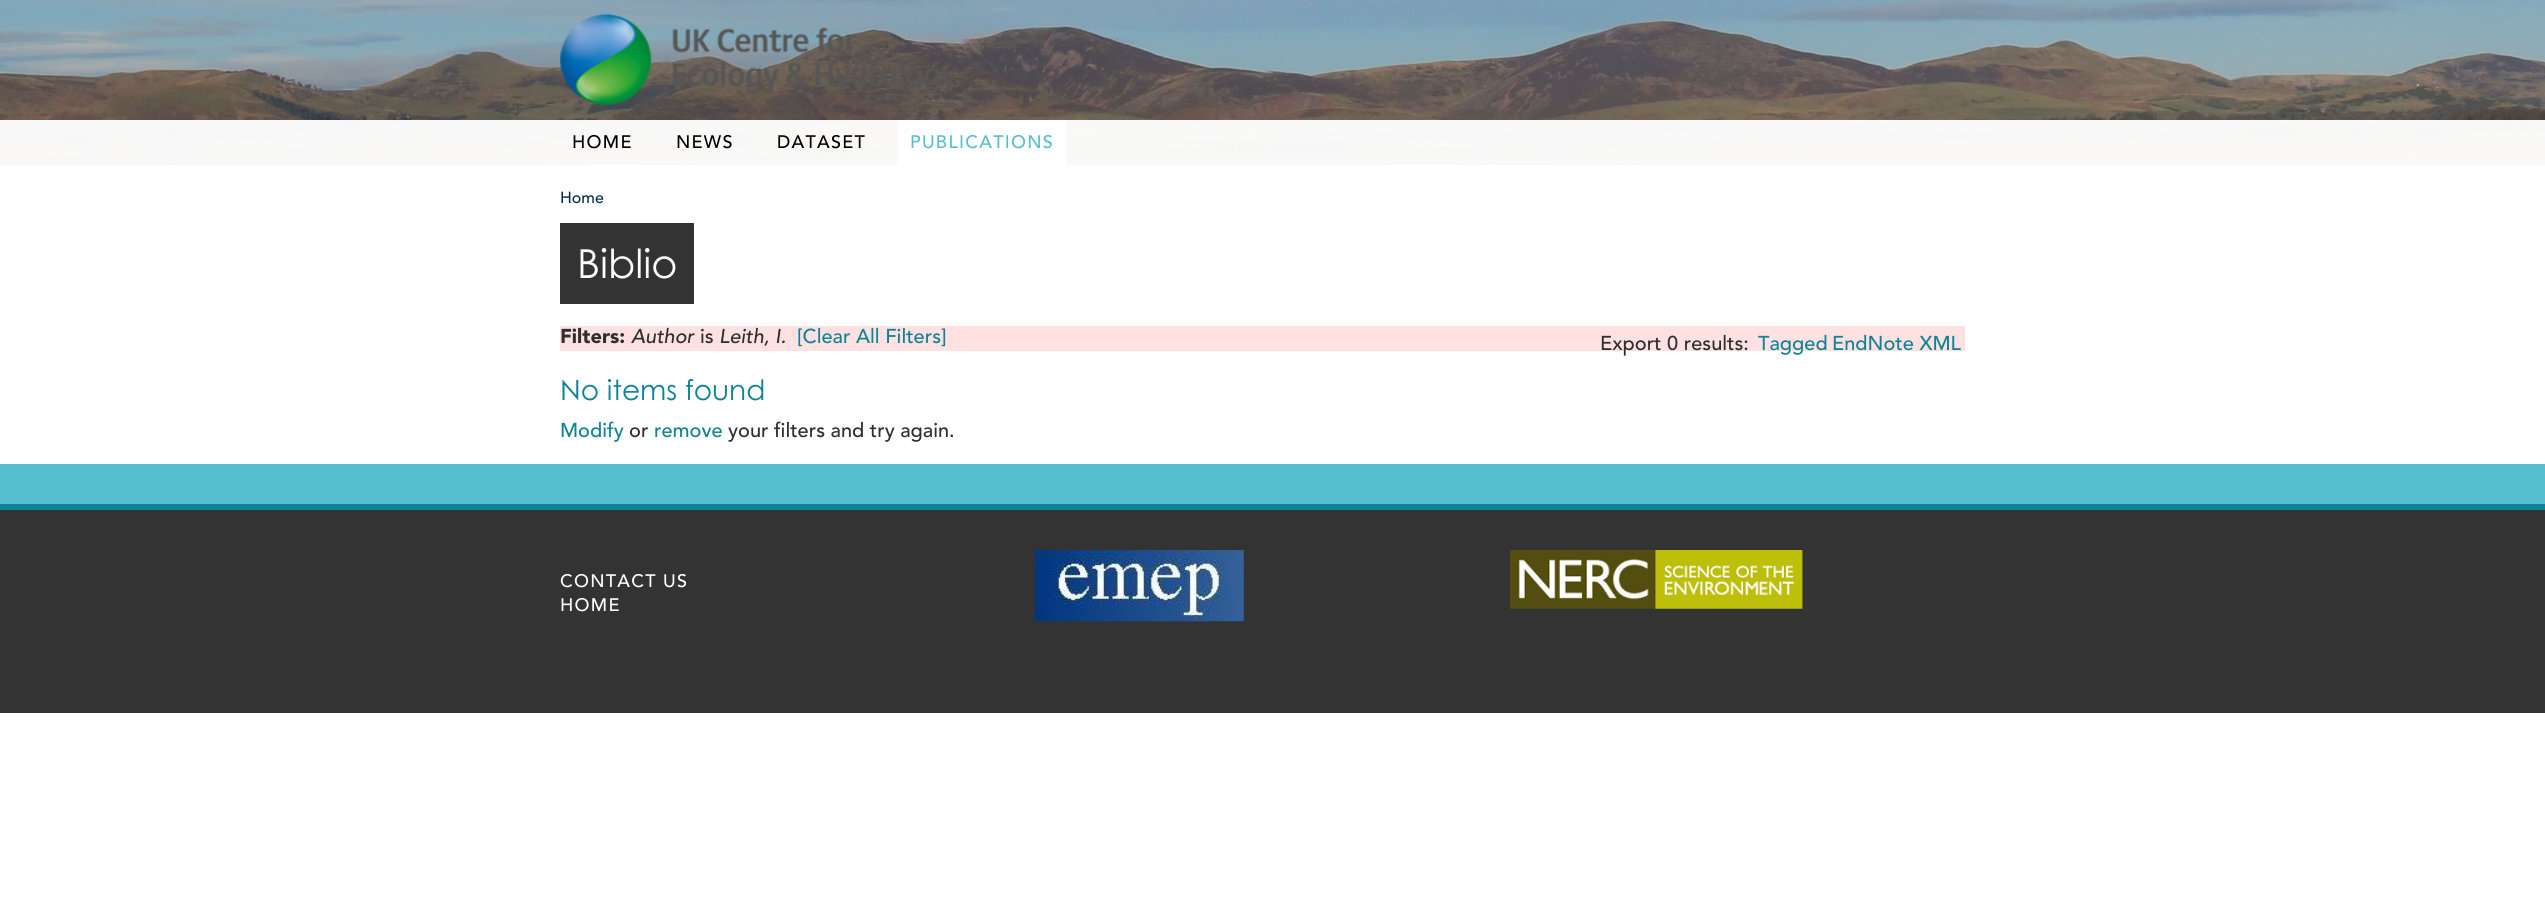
import math
import cairocffi as cairo

surface = cairo.ImageSurface(cairo.FORMAT_RGB24, 2545, 913)
ctx = cairo.Context(surface)
options = cairo.FontOptions()
options.set_hint_metrics(cairo.HINT_METRICS_OFF)
options.set_hint_style(cairo.HINT_STYLE_NONE)
ctx.set_font_options(options)
ctx.set_miter_limit(4)


def rgb(r, g, b):
    ctx.set_source_rgb(r / 255, g / 255, b / 255)


def face(family, size, italic, bold):
    ctx.select_font_face(family, cairo.FONT_SLANT_ITALIC if italic else cairo.FONT_SLANT_NORMAL, cairo.FONT_WEIGHT_BOLD if bold else cairo.FONT_WEIGHT_NORMAL)
    ctx.set_font_size(size)


def label(x, y, s):
    ctx.move_to(x, y)
    ctx.show_text(s)


def tracked(x, y, s, letter, word):
    ctx.move_to(x, y)
    for ch in s:
        ctx.show_text(ch)
        ctx.rel_move_to(letter + word * (ch == ' '), 0)


def rect(x, y, w, h):
    ctx.rectangle(x, y, w, h)
    ctx.fill()


def image(path, x, y, w, h):
    ctx.save()
    ctx.set_source_surface(cairo.ImageSurface.create_from_png(path), x, y)
    ctx.rectangle(x, y, w, h)
    ctx.fill()
    ctx.restore()


rgb(255, 255, 255)
ctx.paint()
image('image0.png', 0, 0, 2545, 165)
image('image1.png', 560, 13, 396, 93)
ctx.set_source_rgba(1, 1, 1, 0.8)
rect(0, 120, 2545, 45)
rect(0, 120, 2545, 45)
face('Avenir Medium', 18, 0, 0)
rgb(0, 0, 0)
tracked(572, 148, 'HOME', 1.25, 0)
tracked(676, 148, 'NEWS', 1.25, 0)
tracked(777, 148, 'DATASET', 1.25, 0)
rgb(255, 255, 255)
rect(898, 120, 168, 45)
rgb(85, 191, 204)
tracked(910, 148, 'PUBLICATIONS', 1.25, 0)
face('Avenir Medium', 16, 0, 0)
rgb(0, 44, 80)
label(560, 203, 'Home')
rgb(51, 51, 51)
rect(560, 223, 134, 81)
face('Century Gothic', 40, 0, 0)
rgb(255, 255, 255)
label(577, 278, 'Biblio')
rgb(255, 225, 225)
rect(560, 326, 1405, 25)
face('Avenir Black', 20, 0, 0)
rgb(46, 46, 46)
label(560, 343, 'Filters:')
face('Avenir Medium', 20, 1, 0)
label(631, 343, 'Author')
face('Avenir Medium', 20, 0, 0)
label(700, 343, 'is')
face('Avenir Medium', 20, 1, 0)
label(719, 343, 'Leith, I.')
face('Avenir Medium', 20, 0, 0)
rgb(13, 131, 150)
label(797, 343, '[Clear All Filters]')
rgb(46, 46, 46)
label(1600, 350, 'Export 0 results:')
rgb(13, 131, 150)
label(1758, 350, 'Tagged')
label(1832, 350, 'EndNote XML')
face('Century Gothic', 28, 0, 0)
label(560, 400, 'No items found')
face('Avenir Medium', 20, 0, 0)
label(560, 437, 'Modify')
rgb(46, 46, 46)
label(629, 437, 'or')
rgb(13, 131, 150)
label(654, 437, 'remove')
rgb(46, 46, 46)
label(728, 437, 'your filters and try again.')
rgb(85, 191, 207)
rect(0, 464, 2545, 40)
rgb(13, 131, 150)
rect(0, 504, 2545, 6)
rgb(51, 51, 51)
rect(0, 510, 2545, 203)
face('Avenir Medium', 18, 0, 0)
rgb(255, 255, 255)
tracked(560, 587, 'CONTACT US', 1.25, 0)
tracked(560, 611, 'HOME', 1.25, 0)
image('image2.png', 1035, 550, 209, 72)
image('image3.png', 1510, 550, 293, 59)
surface.write_to_png('render.png')
